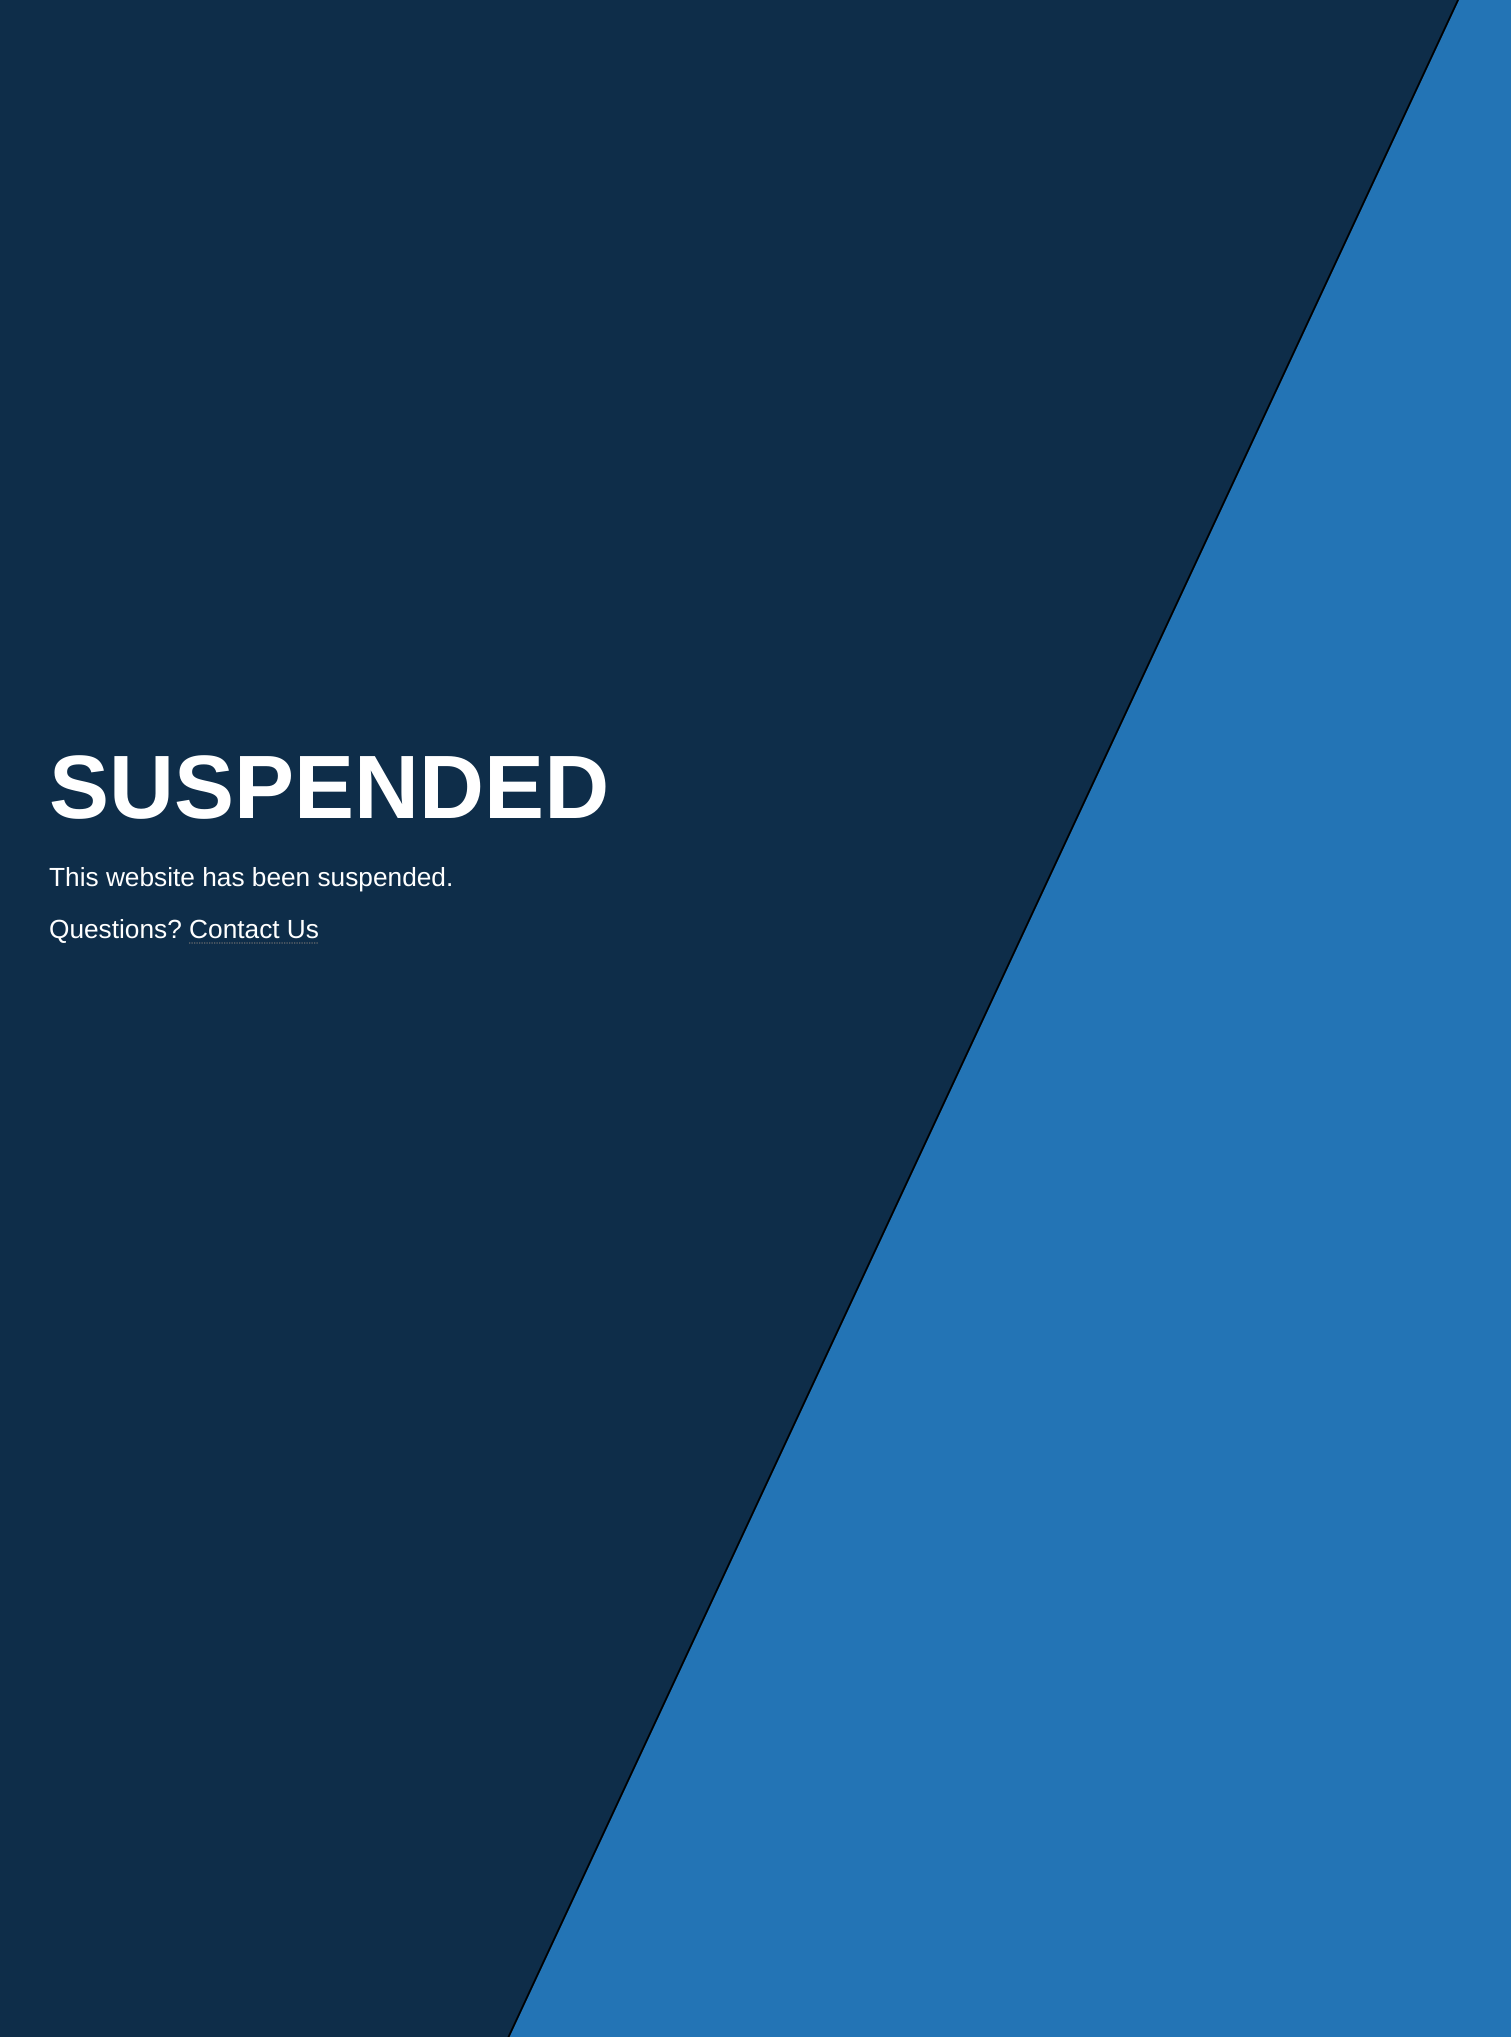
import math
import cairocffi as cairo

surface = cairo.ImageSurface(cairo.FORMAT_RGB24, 1511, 2037)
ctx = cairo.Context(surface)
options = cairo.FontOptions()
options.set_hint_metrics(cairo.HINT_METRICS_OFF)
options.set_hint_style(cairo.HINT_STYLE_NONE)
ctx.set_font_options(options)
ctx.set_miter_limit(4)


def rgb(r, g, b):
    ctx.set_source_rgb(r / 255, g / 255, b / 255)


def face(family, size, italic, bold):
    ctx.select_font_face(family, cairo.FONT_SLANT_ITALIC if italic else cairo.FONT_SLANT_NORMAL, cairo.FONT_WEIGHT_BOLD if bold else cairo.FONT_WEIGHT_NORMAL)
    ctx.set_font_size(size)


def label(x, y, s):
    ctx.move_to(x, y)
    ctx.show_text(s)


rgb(35, 116, 181)
ctx.paint()
rgb(14, 45, 73)
ctx.new_path()
ctx.move_to(-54, 0)
ctx.line_to(1459, 0)
ctx.line_to(509, 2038)
ctx.line_to(-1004, 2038)
ctx.close_path()
ctx.fill()
rgb(0, 0, 0)
ctx.new_path()
ctx.move_to(1457, 0)
ctx.line_to(1459, 0)
ctx.line_to(509, 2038)
ctx.line_to(507, 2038)
ctx.close_path()
ctx.fill()
face('Liberation Sans', 90, 0, 1)
rgb(255, 255, 255)
label(49, 818, 'SUSPENDED')
face('Liberation Sans', 26.25, 0, 0)
label(49, 886, 'This website has been suspended.')
label(49, 938, 'Questions? Contact Us')
ctx.new_path()
ctx.move_to(189, 943)
ctx.line_to(319, 943)
rgb(112, 112, 112)
ctx.set_line_width(1.2)
ctx.set_dash([1.25, 1.25])
ctx.stroke()
surface.write_to_png('render.png')
